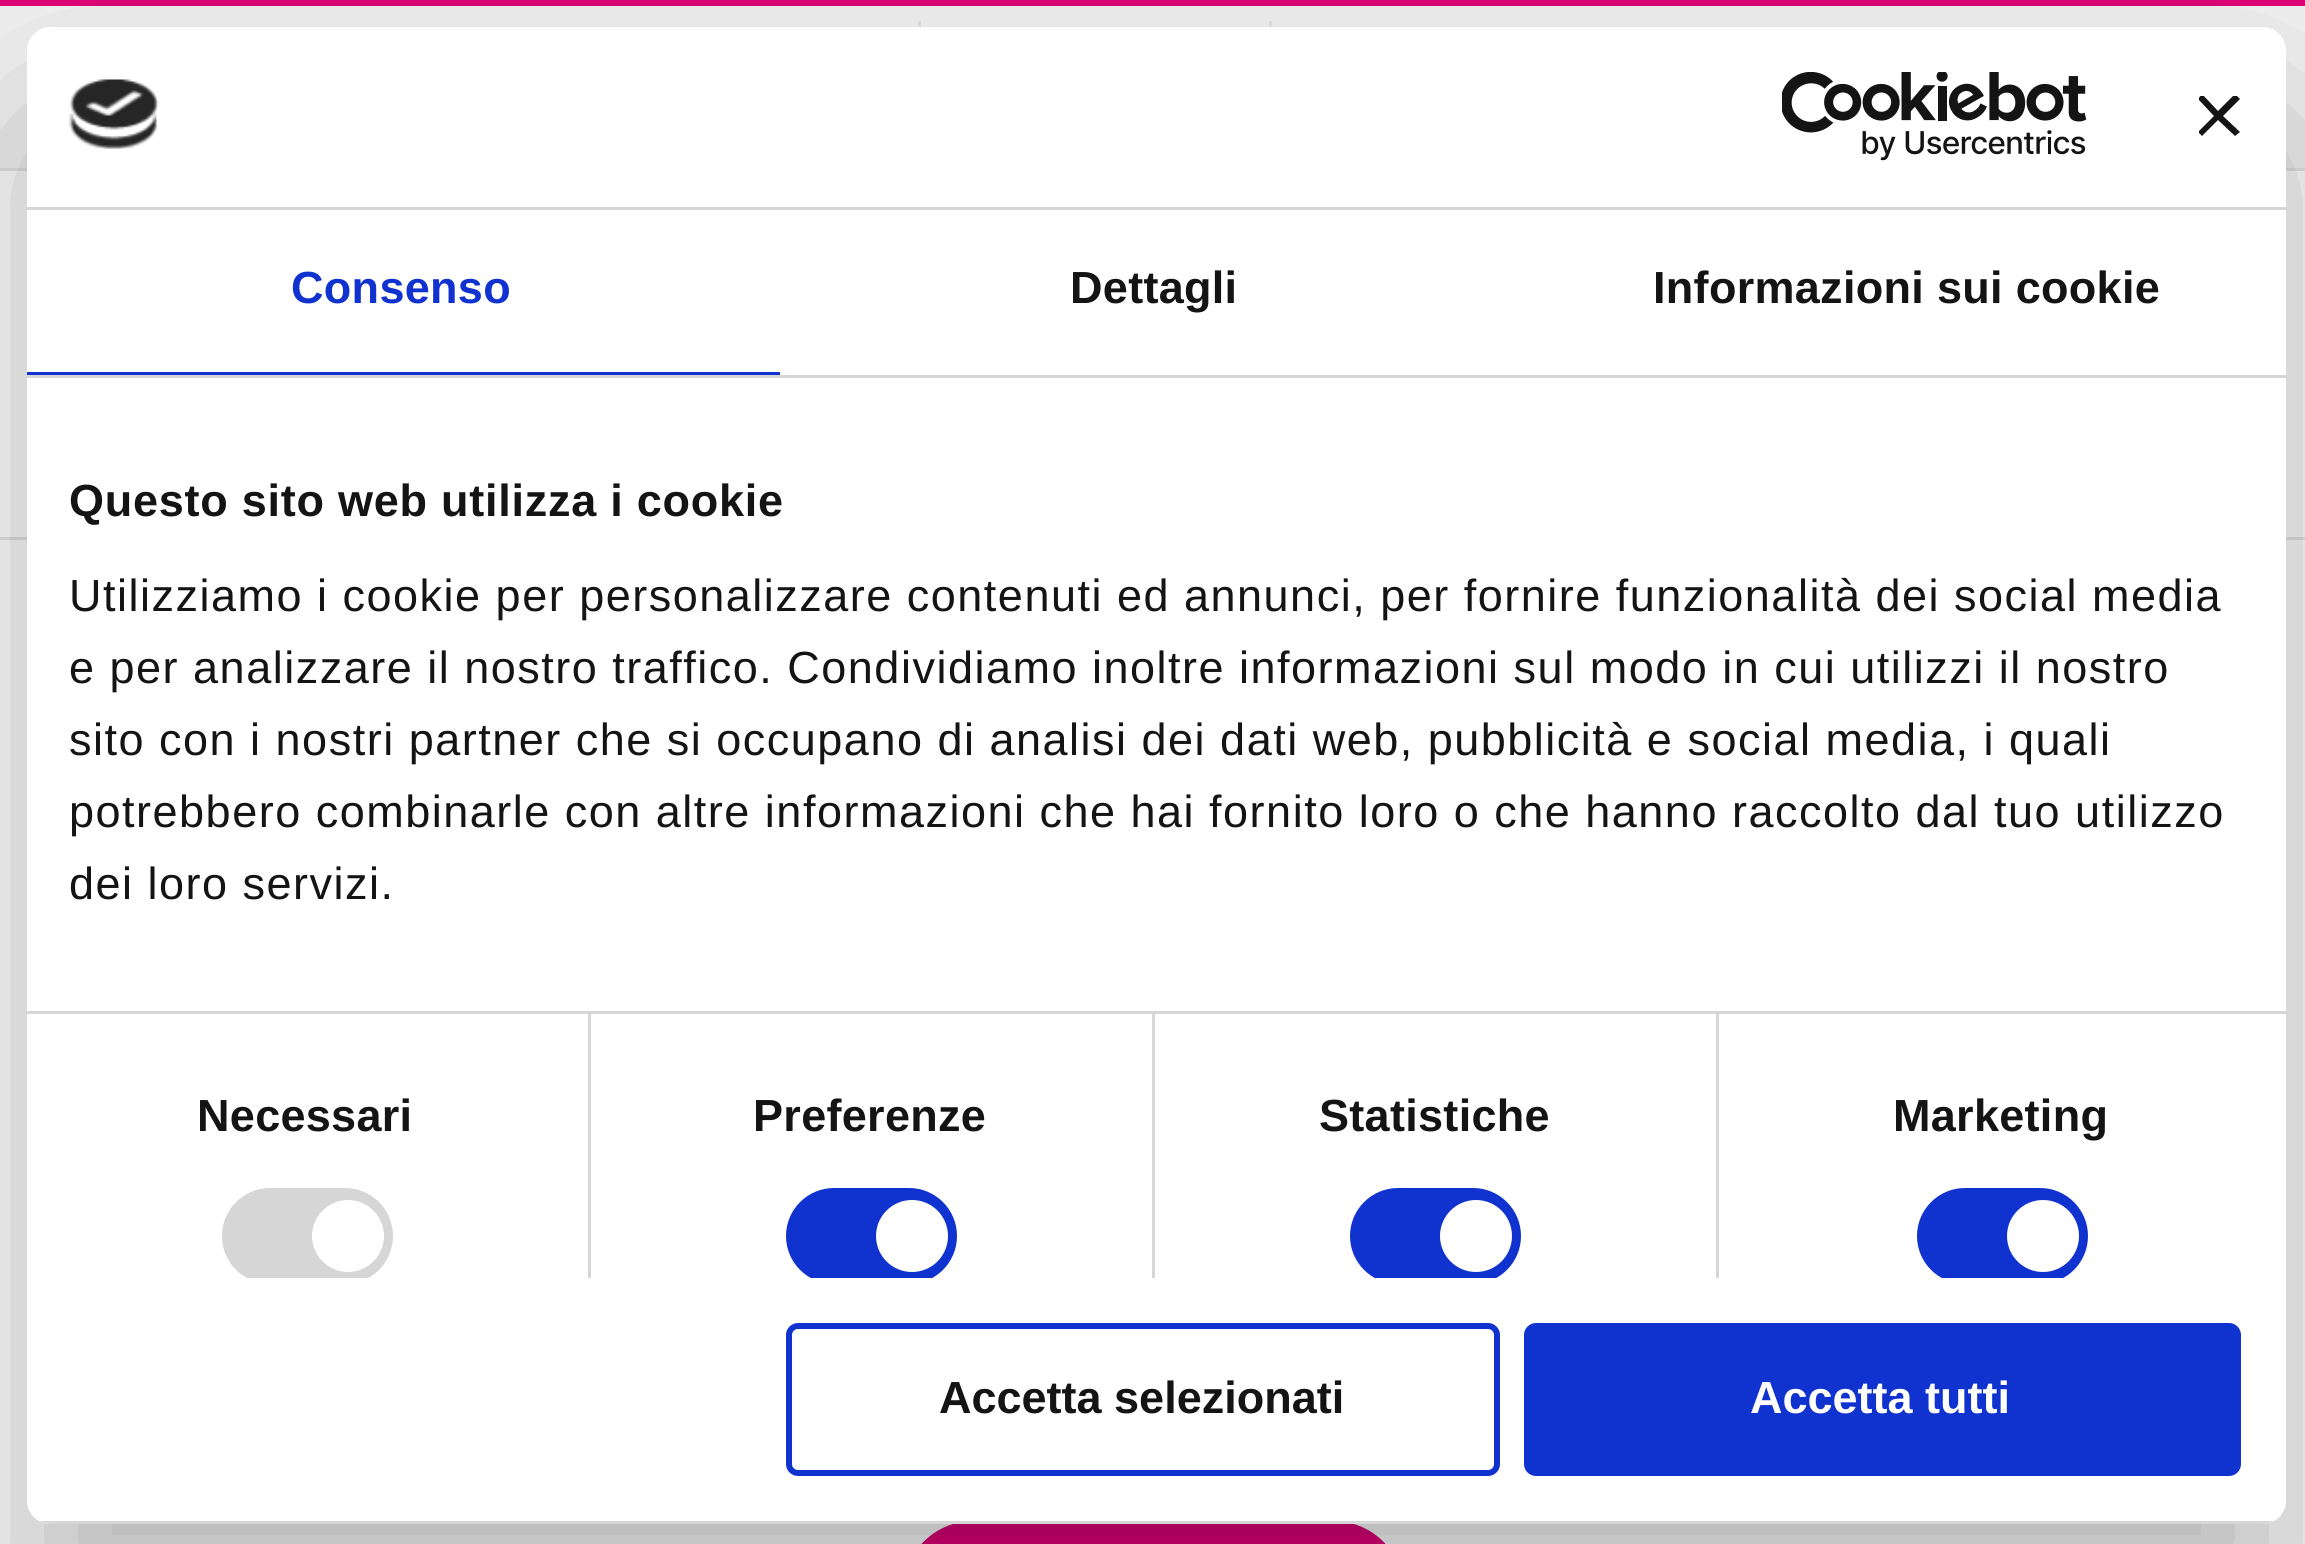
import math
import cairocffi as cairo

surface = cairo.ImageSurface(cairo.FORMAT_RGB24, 2305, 1544)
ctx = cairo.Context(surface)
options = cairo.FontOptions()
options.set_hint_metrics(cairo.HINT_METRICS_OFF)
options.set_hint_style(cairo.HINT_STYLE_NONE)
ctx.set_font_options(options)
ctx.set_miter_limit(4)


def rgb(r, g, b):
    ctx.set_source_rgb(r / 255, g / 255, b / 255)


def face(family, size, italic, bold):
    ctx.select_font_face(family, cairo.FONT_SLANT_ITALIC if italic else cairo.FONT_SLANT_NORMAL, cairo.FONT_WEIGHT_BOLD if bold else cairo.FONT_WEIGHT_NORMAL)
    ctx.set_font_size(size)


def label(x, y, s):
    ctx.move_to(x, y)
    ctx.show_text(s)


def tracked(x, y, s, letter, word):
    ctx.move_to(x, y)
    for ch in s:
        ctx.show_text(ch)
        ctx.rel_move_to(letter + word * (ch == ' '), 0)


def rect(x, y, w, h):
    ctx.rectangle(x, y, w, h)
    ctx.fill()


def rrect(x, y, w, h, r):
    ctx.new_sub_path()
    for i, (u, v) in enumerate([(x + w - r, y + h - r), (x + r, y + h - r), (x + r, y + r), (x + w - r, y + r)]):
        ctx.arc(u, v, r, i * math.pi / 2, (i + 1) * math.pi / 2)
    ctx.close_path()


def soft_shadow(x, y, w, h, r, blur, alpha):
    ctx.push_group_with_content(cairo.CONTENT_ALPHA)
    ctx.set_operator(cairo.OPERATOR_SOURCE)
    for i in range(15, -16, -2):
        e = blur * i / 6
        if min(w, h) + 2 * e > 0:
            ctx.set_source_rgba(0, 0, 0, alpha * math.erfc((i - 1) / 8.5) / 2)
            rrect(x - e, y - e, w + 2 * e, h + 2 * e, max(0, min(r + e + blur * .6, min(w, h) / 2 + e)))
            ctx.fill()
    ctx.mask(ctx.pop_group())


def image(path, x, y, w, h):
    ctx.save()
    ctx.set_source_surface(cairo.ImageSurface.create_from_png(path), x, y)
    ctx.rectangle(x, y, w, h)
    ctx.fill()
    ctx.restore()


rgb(255, 255, 255)
ctx.paint()
rgb(243, 243, 243)
rect(0, 6, 2305, 162)
rgb(226, 0, 122)
rect(0, 0, 2305, 6)
rgb(229, 229, 229)
rect(0, 168, 2305, 3)
rect(918, 21, 3, 6)
rect(1269, 21, 3, 6)
rect(0, 537, 2305, 3)
rgb(226, 0, 122)
rrect(906, 1524, 495, 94, 67.5)
ctx.fill_preserve()
rgb(224, 2, 121)
ctx.set_line_width(6)
ctx.stroke()
ctx.save()
ctx.set_fill_rule(cairo.FILL_RULE_EVEN_ODD)
ctx.new_path()
ctx.move_to(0, 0)
ctx.line_to(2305, 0)
ctx.line_to(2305, 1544)
ctx.line_to(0, 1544)
ctx.close_path()
ctx.move_to(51, 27)
ctx.line_to(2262, 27)
ctx.curve_to(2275.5, 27, 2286, 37.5, 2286, 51)
ctx.line_to(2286, 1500)
ctx.curve_to(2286, 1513.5, 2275.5, 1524, 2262, 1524)
ctx.line_to(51, 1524)
ctx.curve_to(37.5, 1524, 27, 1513.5, 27, 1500)
ctx.line_to(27, 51)
ctx.curve_to(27, 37.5, 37.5, 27, 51, 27)
ctx.close_path()
ctx.clip()
rgb(0, 0, 0)
soft_shadow(27, 123, 2259, 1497, 24, 102, 0.3)
ctx.restore()
rgb(255, 255, 255)
rrect(27, 27, 2259, 1497, 24)
ctx.fill()
rgb(214, 214, 214)
rect(27, 207, 2259, 3)
image('image0.png', 69, 79, 90, 70)
image('image1.png', 1782, 72, 305, 89)
ctx.save()
ctx.rectangle(2199, 96, 42, 42)
ctx.clip()
rgb(20, 20, 20)
ctx.new_path()
ctx.move_to(2240, 99)
ctx.line_to(2235, 94)
ctx.line_to(2218, 111)
ctx.line_to(2202, 94)
ctx.line_to(2198, 99)
ctx.line_to(2214, 116)
ctx.line_to(2198, 132)
ctx.line_to(2202, 136)
ctx.line_to(2218, 120)
ctx.line_to(2235, 136)
ctx.line_to(2240, 132)
ctx.line_to(2223, 116)
ctx.close_path()
ctx.fill()
ctx.restore()
rect(27, 375, 2259, 3)
rgb(16, 50, 207)
rect(27, 372, 753, 3)
face('Liberation Sans', 45, 0, 1)
tracked(291, 303, 'Consenso', 0.3, 0)
rgb(20, 20, 20)
tracked(1070, 303, 'Dettagli', 0.3, 0)
tracked(1653, 303, 'Informazioni sui cookie', 0.3, 0)
rgb(214, 214, 214)
rect(27, 1011, 2259, 3)
rgb(20, 20, 20)
tracked(69, 516, 'Questo sito web utilizza i cookie', 0.75, 0)
face('Liberation Sans', 45, 0, 0)
tracked(69, 611, 'Utilizziamo i cookie per personalizzare contenuti ed annunci, per fornire funzionalità dei social media', 1.5, 0)
tracked(69, 683, 'e per analizzare il nostro traffico. Condividiamo inoltre informazioni sul modo in cui utilizzi il nostro', 1.5, 0)
tracked(69, 755, 'sito con i nostri partner che si occupano di analisi dei dati web, pubblicità e social media, i quali', 1.5, 0)
tracked(69, 827, 'potrebbero combinarle con altre informazioni che hai fornito loro o che hanno raccolto dal tuo utilizzo', 1.5, 0)
tracked(69, 899, 'dei loro servizi.', 1.5, 0)
rgb(214, 214, 214)
rect(588, 1014, 3, 264)
face('Liberation Sans', 45, 0, 1)
rgb(20, 20, 20)
tracked(197, 1131, 'Necessari', 0.3, 0)
ctx.save()
ctx.rectangle(27, 378, 2259, 900)
ctx.clip()
rgb(214, 214, 214)
rrect(222, 1188, 171, 96, 48)
ctx.fill()
ctx.restore()
rgb(255, 255, 255)
ctx.arc(348, 1236, 36, 0, 2 * math.pi)
ctx.fill()
rgb(214, 214, 214)
rect(1152, 1014, 3, 264)
rgb(20, 20, 20)
tracked(753, 1131, 'Preferenze', 0.3, 0)
ctx.save()
ctx.rectangle(27, 378, 2259, 900)
ctx.clip()
rgb(16, 50, 207)
rrect(786, 1188, 171, 96, 48)
ctx.fill()
ctx.restore()
rgb(255, 255, 255)
ctx.arc(912, 1236, 36, 0, 2 * math.pi)
ctx.fill()
rgb(214, 214, 214)
rect(1716, 1014, 3, 264)
rgb(20, 20, 20)
tracked(1319, 1131, 'Statistiche', 0.3, 0)
ctx.save()
ctx.rectangle(27, 378, 2259, 900)
ctx.clip()
rgb(16, 50, 207)
rrect(1350, 1188, 171, 96, 48)
ctx.fill()
ctx.restore()
rgb(255, 255, 255)
ctx.arc(1476, 1236, 36, 0, 2 * math.pi)
ctx.fill()
rgb(20, 20, 20)
tracked(1893, 1131, 'Marketing', 0.3, 0)
ctx.save()
ctx.rectangle(27, 378, 2259, 900)
ctx.clip()
rgb(16, 50, 207)
rrect(1917, 1188, 171, 96, 48)
ctx.fill()
ctx.restore()
rgb(255, 255, 255)
ctx.arc(2043, 1236, 36, 0, 2 * math.pi)
ctx.fill()
ctx.save()
rrect(27, 27, 2259, 1497, 24)
ctx.clip()
rgb(214, 214, 214)
rect(39, 1521, 2235, 3)
ctx.restore()
rrect(789, 1326, 708, 147, 9)
rgb(16, 50, 207)
ctx.stroke()
rgb(20, 20, 20)
label(939, 1413, 'Accetta selezionati')
rgb(16, 50, 207)
rrect(1527, 1326, 711, 147, 9)
ctx.fill_preserve()
ctx.stroke()
rgb(255, 255, 255)
label(1750, 1413, 'Accetta tutti')
surface.write_to_png('render.png')
